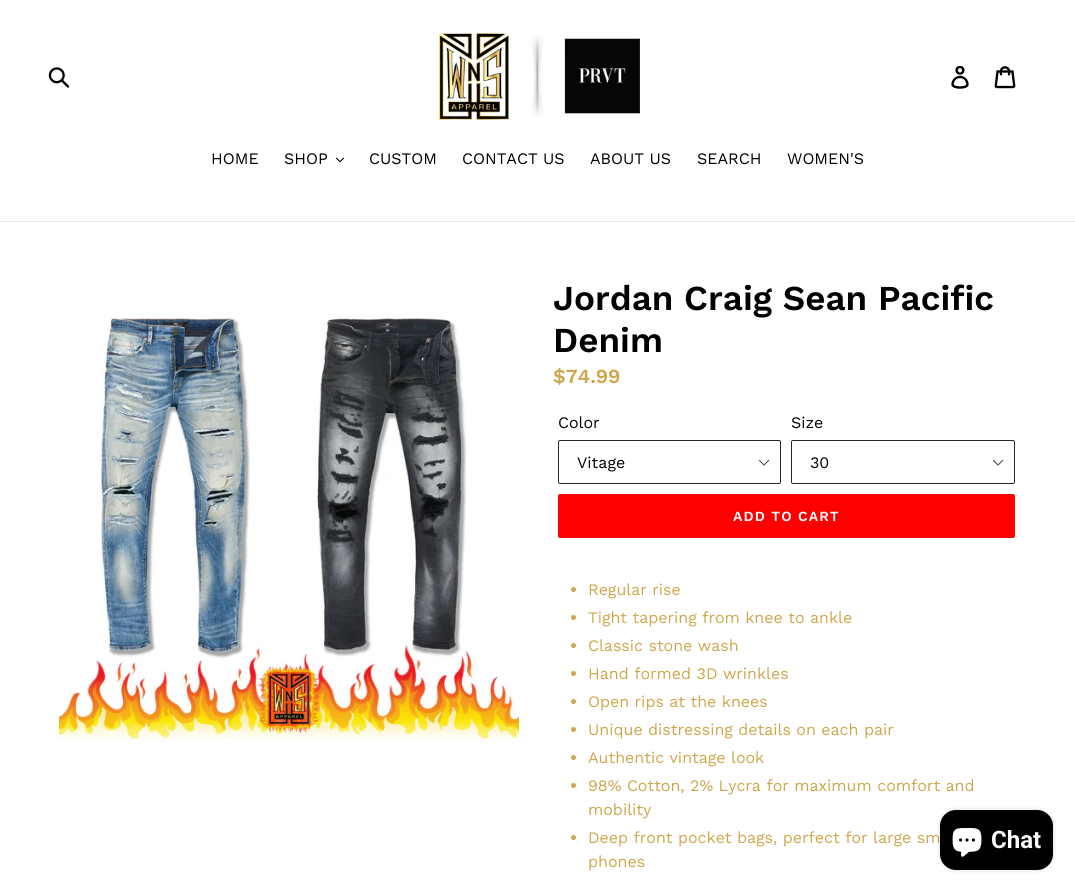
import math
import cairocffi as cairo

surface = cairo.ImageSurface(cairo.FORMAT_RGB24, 1075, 891)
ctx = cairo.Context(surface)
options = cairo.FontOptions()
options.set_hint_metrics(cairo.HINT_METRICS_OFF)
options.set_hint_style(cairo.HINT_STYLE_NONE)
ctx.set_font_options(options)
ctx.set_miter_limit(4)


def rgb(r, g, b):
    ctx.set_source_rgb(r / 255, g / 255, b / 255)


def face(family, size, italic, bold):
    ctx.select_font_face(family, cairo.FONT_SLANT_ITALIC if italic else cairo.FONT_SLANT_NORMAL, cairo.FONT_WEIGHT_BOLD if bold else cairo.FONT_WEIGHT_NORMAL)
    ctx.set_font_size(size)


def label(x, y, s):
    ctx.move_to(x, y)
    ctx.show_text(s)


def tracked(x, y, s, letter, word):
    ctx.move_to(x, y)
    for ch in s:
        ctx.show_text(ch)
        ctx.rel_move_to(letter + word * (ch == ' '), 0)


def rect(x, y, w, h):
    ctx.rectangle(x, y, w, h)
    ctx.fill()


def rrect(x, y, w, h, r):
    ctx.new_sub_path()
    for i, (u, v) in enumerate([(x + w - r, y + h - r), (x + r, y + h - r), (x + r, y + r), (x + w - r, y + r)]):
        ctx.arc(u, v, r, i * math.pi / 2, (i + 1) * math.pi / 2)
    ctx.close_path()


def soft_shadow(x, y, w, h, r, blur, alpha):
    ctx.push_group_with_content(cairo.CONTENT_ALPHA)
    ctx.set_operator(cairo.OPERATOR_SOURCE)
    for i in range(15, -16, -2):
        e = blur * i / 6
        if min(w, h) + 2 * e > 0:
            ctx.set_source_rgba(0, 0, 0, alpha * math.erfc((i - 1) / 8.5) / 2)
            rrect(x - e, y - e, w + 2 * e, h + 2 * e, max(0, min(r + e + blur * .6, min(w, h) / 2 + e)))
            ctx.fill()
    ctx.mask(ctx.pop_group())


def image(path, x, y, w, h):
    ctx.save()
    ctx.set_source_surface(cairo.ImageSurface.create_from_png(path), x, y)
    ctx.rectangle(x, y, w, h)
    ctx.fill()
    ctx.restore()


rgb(255, 255, 255)
ctx.paint()
image('image0.png', 48, 67, 22, 21)
image('image1.png', 439, 33, 201, 87)
image('image2.png', 951, 66, 18, 23)
image('image3.png', 994, 66, 22, 23)
rgb(232, 233, 235)
rect(0, 221, 1075, 1)
face('Work Sans', 16, 0, 0)
rgb(0, 0, 0)
label(211, 164, 'HOME')
label(284, 164, 'SHOP')
image('image4.png', 336, 157, 8, 6)
label(369, 164, 'CUSTOM')
label(462, 164, 'CONTACT US')
label(590, 164, 'ABOUT US')
label(697, 164, 'SEARCH')
label(787, 164, 'WOMEN\'S')
image('image5.png', 59, 317, 460, 424)
face('Work Sans SemiBold', 35, 0, 0)
label(553, 310, 'Jordan Craig Sean Pacific')
label(553, 352, 'Denim')
face('Work Sans SemiBold', 20, 0, 0)
rgb(206, 166, 76)
label(553, 383, '$74.99')
face('Work Sans', 16, 0, 0)
rgb(0, 0, 0)
label(558, 428, 'Color')
image('image6.png', 758, 459, 12, 7)
rrect(558.5, 440.5, 222, 43, 1.5)
rgb(38, 38, 38)
ctx.set_line_width(1)
ctx.stroke()
rgb(0, 0, 0)
label(577, 468, 'Vitage')
label(791, 428, 'Size')
image('image6.png', 992, 459, 12, 7)
rrect(791.5, 440.5, 223, 43, 1.5)
rgb(38, 38, 38)
ctx.stroke()
rgb(0, 0, 0)
label(810, 468, '30')
rgb(255, 0, 0)
rrect(558, 494, 457, 44, 2)
ctx.fill()
face('Work Sans SemiBold', 14, 0, 0)
rgb(255, 255, 255)
tracked(733, 521, 'ADD TO CART', 1.1, 0)
rgb(206, 166, 76)
ctx.new_path()
ctx.arc(573.5, 589.5, 2.5, 0, 2 * math.pi)
ctx.fill()
face('Work Sans', 16, 0, 0)
label(588, 595, 'Regular rise')
ctx.new_path()
ctx.arc(573.5, 617.5, 2.5, 0, 2 * math.pi)
ctx.fill()
label(588, 623, 'Tight tapering from knee to ankle')
ctx.new_path()
ctx.arc(573.5, 645.5, 2.5, 0, 2 * math.pi)
ctx.fill()
label(588, 651, 'Classic stone wash')
ctx.new_path()
ctx.arc(573.5, 673.5, 2.5, 0, 2 * math.pi)
ctx.fill()
label(588, 679, 'Hand formed 3D wrinkles')
ctx.new_path()
ctx.arc(573.5, 701.5, 2.5, 0, 2 * math.pi)
ctx.fill()
label(588, 707, 'Open rips at the knees')
ctx.new_path()
ctx.arc(573.5, 729.5, 2.5, 0, 2 * math.pi)
ctx.fill()
label(588, 735, 'Unique distressing details on each pair')
ctx.new_path()
ctx.arc(573.5, 757.5, 2.5, 0, 2 * math.pi)
ctx.fill()
label(588, 763, 'Authentic vintage look')
ctx.new_path()
ctx.arc(573.5, 785.5, 2.5, 0, 2 * math.pi)
ctx.fill()
label(588, 791, '98% Cotton, 2% Lycra for maximum comfort and')
label(588, 815, 'mobility')
ctx.new_path()
ctx.arc(573.5, 837.5, 2.5, 0, 2 * math.pi)
ctx.fill()
label(588, 843, 'Deep front pocket bags, perfect for large sm')
label(588, 867, 'phones')
rgb(0, 0, 0)
soft_shadow(940, 810, 113, 60, 16, 2.5, 0.15)
rgb(0, 0, 0)
rrect(940, 810, 113, 60, 16)
ctx.fill()
image('image7.png', 952, 828, 30, 29)
face('Roboto', 24, 0, 1)
rgb(255, 255, 255)
label(991, 848, 'Chat')
surface.write_to_png('render.png')
